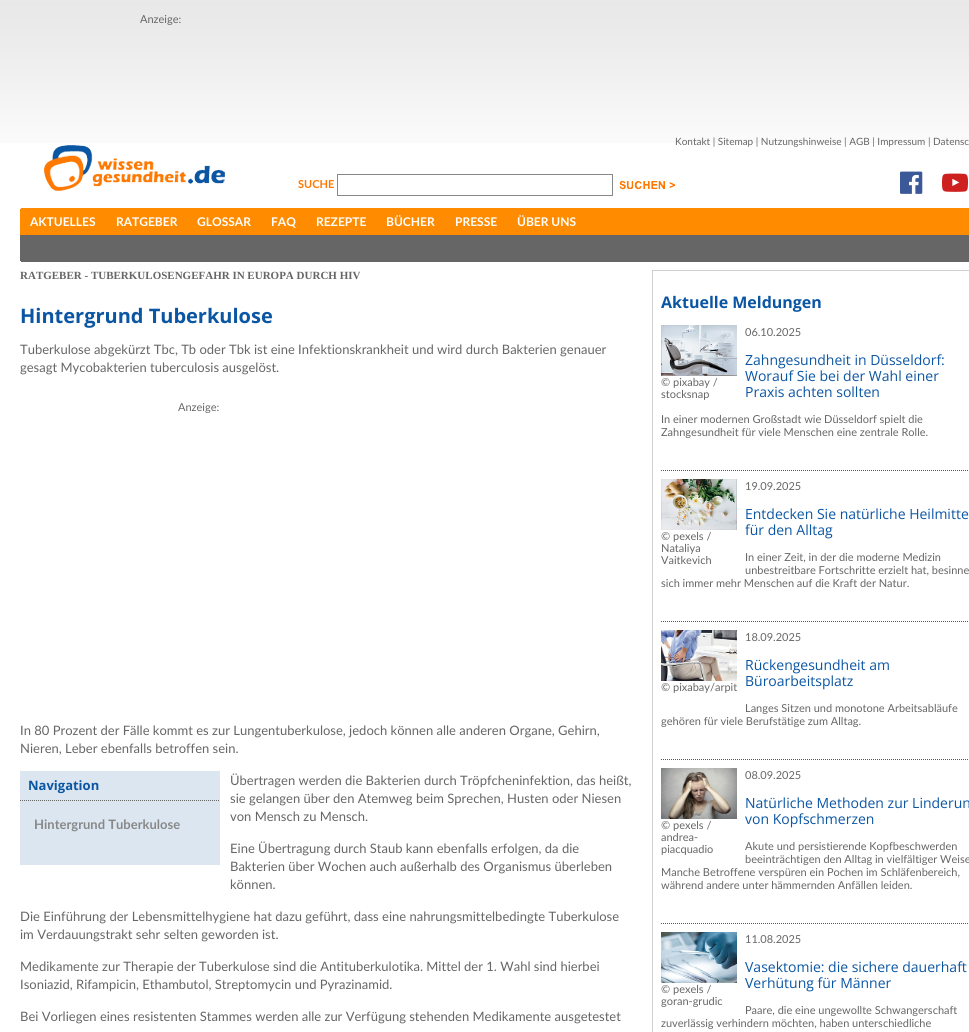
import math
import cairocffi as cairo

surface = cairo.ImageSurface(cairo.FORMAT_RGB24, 969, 1032)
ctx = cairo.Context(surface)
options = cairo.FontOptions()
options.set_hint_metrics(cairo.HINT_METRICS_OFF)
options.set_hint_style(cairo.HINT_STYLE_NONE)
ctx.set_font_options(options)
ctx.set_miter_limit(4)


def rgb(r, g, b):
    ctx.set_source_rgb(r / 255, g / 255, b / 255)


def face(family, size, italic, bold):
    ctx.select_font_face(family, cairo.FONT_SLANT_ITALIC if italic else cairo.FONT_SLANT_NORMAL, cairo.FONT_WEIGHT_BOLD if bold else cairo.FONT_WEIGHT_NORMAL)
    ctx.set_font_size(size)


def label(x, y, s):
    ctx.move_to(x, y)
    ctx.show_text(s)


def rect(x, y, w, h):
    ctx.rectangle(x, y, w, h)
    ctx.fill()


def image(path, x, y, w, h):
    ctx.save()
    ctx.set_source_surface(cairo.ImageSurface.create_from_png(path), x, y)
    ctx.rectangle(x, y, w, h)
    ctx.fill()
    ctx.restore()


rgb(255, 255, 255)
ctx.paint()
image('image0.png', 0, 0, 969, 143)
face('Lato', 11, 0, 0)
rgb(102, 102, 102)
label(140, 23, 'Anzeige:')
image('image1.png', 44, 145, 181, 46)
face('Lato', 10, 0, 0)
label(675, 145, 'Kontakt | Sitemap | Nutzungshinweise | AGB | Impressum | Datensc')
face('Lato', 11, 0, 1)
rgb(255, 120, 0)
label(298, 188, 'SUCHE')
ctx.rectangle(337.5, 174.5, 275, 21)
rgb(136, 136, 136)
ctx.set_line_width(1)
ctx.stroke()
image('image2.png', 619, 180, 57, 10)
image('image3.png', 900, 171, 23, 23)
image('image4.png', 942, 173, 26, 19)
rgb(255, 139, 0)
rect(20, 208, 949, 27)
rgb(255, 255, 255)
rect(20, 208, 1, 1)
face('Lato', 12, 0, 1)
label(30, 226, 'AKTUELLES')
label(116, 226, 'RATGEBER')
label(197, 226, 'GLOSSAR')
label(271, 226, 'FAQ')
label(316, 226, 'REZEPTE')
label(386, 226, 'BÜCHER')
label(455, 226, 'PRESSE')
label(517, 226, 'ÜBER UNS')
rgb(102, 102, 102)
rect(20, 235, 949, 27)
rgb(255, 255, 255)
rect(20, 261, 1, 1)
face('Liberation Serif', 11, 0, 1)
rgb(102, 102, 102)
label(20, 279, 'RATGEBER - TUBERKULOSENGEFAHR IN EUROPA DURCH HIV')
face('Open Sans', 20, 0, 1)
rgb(11, 86, 163)
label(20, 323, 'Hintergrund Tuberkulose')
face('Lato', 13, 0, 0)
rgb(102, 102, 102)
label(20, 354, 'Tuberkulose abgekürzt Tbc, Tb oder Tbk ist eine Infektionskrankheit und wird durch Bakterien genauer')
label(20, 372, 'gesagt Mycobakterien tuberculosis ausgelöst.')
face('Lato', 11, 0, 0)
label(178, 411, 'Anzeige:')
face('Lato', 13, 0, 0)
label(20, 735, 'In 80 Prozent der Fälle kommt es zur Lungentuberkulose, jedoch können alle anderen Organe, Gehirn,')
label(20, 753, 'Nieren, Leber ebenfalls betroffen sein.')
rgb(219, 230, 241)
rect(20, 771, 200, 94)
ctx.new_path()
ctx.move_to(20, 800.5)
ctx.line_to(220, 800.5)
rgb(102, 102, 102)
ctx.set_dash([1, 1])
ctx.stroke()
face('Open Sans', 13, 0, 1)
rgb(11, 86, 163)
label(28, 790, 'Navigation')
face('Lato', 13, 0, 1)
rgb(136, 136, 136)
label(34, 829, 'Hintergrund Tuberkulose')
face('Lato', 13, 0, 0)
rgb(102, 102, 102)
label(230, 785, 'Übertragen werden die Bakterien durch Tröpfcheninfektion, das heißt,')
label(230, 803, 'sie gelangen über den Atemweg beim Sprechen, Husten oder Niesen')
label(230, 821, 'von Mensch zu Mensch.')
label(230, 853, 'Eine Übertragung durch Staub kann ebenfalls erfolgen, da die')
label(230, 871, 'Bakterien über Wochen auch außerhalb des Organismus überleben')
label(230, 889, 'können.')
label(20, 921, 'Die Einführung der Lebensmittelhygiene hat dazu geführt, dass eine nahrungsmittelbedingte Tuberkulose')
label(20, 939, 'im Verdauungstrakt sehr selten geworden ist.')
label(20, 971, 'Medikamente zur Therapie der Tuberkulose sind die Antituberkulotika. Mittel der 1. Wahl sind hierbei')
label(20, 989, 'Isoniazid, Rifampicin, Ethambutol, Streptomycin und Pyrazinamid.')
label(20, 1021, 'Bei Vorliegen eines resistenten Stammes werden alle zur Verfügung stehenden Medikamente ausgetestet')
ctx.rectangle(652.5, 270.5, 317, 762)
rgb(208, 208, 208)
ctx.set_dash([])
ctx.stroke()
face('Open Sans', 16, 0, 1)
rgb(11, 86, 163)
label(661, 308, 'Aktuelle Meldungen')
ctx.new_path()
ctx.move_to(661, 470.5)
ctx.line_to(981, 470.5)
rgb(86, 86, 86)
ctx.set_dash([1, 1])
ctx.stroke()
face('Lato', 11, 0, 0)
rgb(102, 102, 102)
label(745, 336, '06.10.2025')
image('image5.png', 661, 325, 76, 51)
label(661, 386, '© pixabay /')
label(661, 398, 'stocksnap')
face('Open Sans', 14, 0, 0)
rgb(11, 86, 163)
label(745, 365, 'Zahngesundheit in Düsseldorf:')
label(745, 381, 'Worauf Sie bei der Wahl einer')
label(745, 397, 'Praxis achten sollten')
face('Lato', 11, 0, 0)
rgb(102, 102, 102)
label(661, 423, 'In einer modernen Großstadt wie Düsseldorf spielt die')
label(661, 436, 'Zahngesundheit für viele Menschen eine zentrale Rolle.')
ctx.new_path()
ctx.move_to(661, 621.5)
ctx.line_to(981, 621.5)
rgb(86, 86, 86)
ctx.stroke()
rgb(102, 102, 102)
label(745, 490, '19.09.2025')
face('Open Sans', 14, 0, 0)
rgb(11, 86, 163)
label(745, 519, 'Entdecken Sie natürliche Heilmitte')
label(745, 535, 'für den Alltag')
image('image6.png', 661, 479, 76, 51)
face('Lato', 11, 0, 0)
rgb(102, 102, 102)
label(661, 540, '© pexels /')
label(661, 552, 'Nataliya')
label(661, 564, 'Vaitkevich')
label(745, 561, 'In einer Zeit, in der die moderne Medizin')
label(745, 574, 'unbestreitbare Fortschritte erzielt hat, besinne')
label(661, 587, 'sich immer mehr Menschen auf die Kraft der Natur.')
ctx.new_path()
ctx.move_to(661, 759.5)
ctx.line_to(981, 759.5)
rgb(86, 86, 86)
ctx.stroke()
rgb(102, 102, 102)
label(745, 641, '18.09.2025')
image('image7.png', 661, 630, 76, 51)
label(661, 691, '© pixabay/arpit')
face('Open Sans', 14, 0, 0)
rgb(11, 86, 163)
label(745, 670, 'Rückengesundheit am')
label(745, 686, 'Büroarbeitsplatz')
face('Lato', 11, 0, 0)
rgb(102, 102, 102)
label(745, 712, 'Langes Sitzen und monotone Arbeitsabläufe')
label(661, 725, 'gehören für viele Berufstätige zum Alltag.')
ctx.new_path()
ctx.move_to(661, 923.5)
ctx.line_to(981, 923.5)
rgb(86, 86, 86)
ctx.stroke()
rgb(102, 102, 102)
label(745, 779, '08.09.2025')
face('Open Sans', 14, 0, 0)
rgb(11, 86, 163)
label(745, 808, 'Natürliche Methoden zur Linderun')
label(745, 824, 'von Kopfschmerzen')
image('image8.png', 661, 768, 76, 51)
face('Lato', 11, 0, 0)
rgb(102, 102, 102)
label(661, 829, '© pexels /')
label(661, 841, 'andrea-')
label(661, 853, 'piacquadio')
label(745, 850, 'Akute und persistierende Kopfbeschwerden')
label(745, 863, 'beeinträchtigen den Alltag in vielfältiger Weise')
label(661, 876, 'Manche Betroffene verspüren ein Pochen im Schläfenbereich,')
label(661, 889, 'während andere unter hämmernden Anfällen leiden.')
label(745, 943, '11.08.2025')
face('Open Sans', 14, 0, 0)
rgb(11, 86, 163)
label(745, 972, 'Vasektomie: die sichere dauerhaft')
label(745, 988, 'Verhütung für Männer')
image('image9.png', 661, 932, 76, 51)
face('Lato', 11, 0, 0)
rgb(102, 102, 102)
label(661, 993, '© pexels /')
label(661, 1005, 'goran-grudic')
label(745, 1014, 'Paare, die eine ungewollte Schwangerschaft')
label(661, 1027, 'zuverlässig verhindern möchten, haben unterschiedliche')
surface.write_to_png('render.png')
